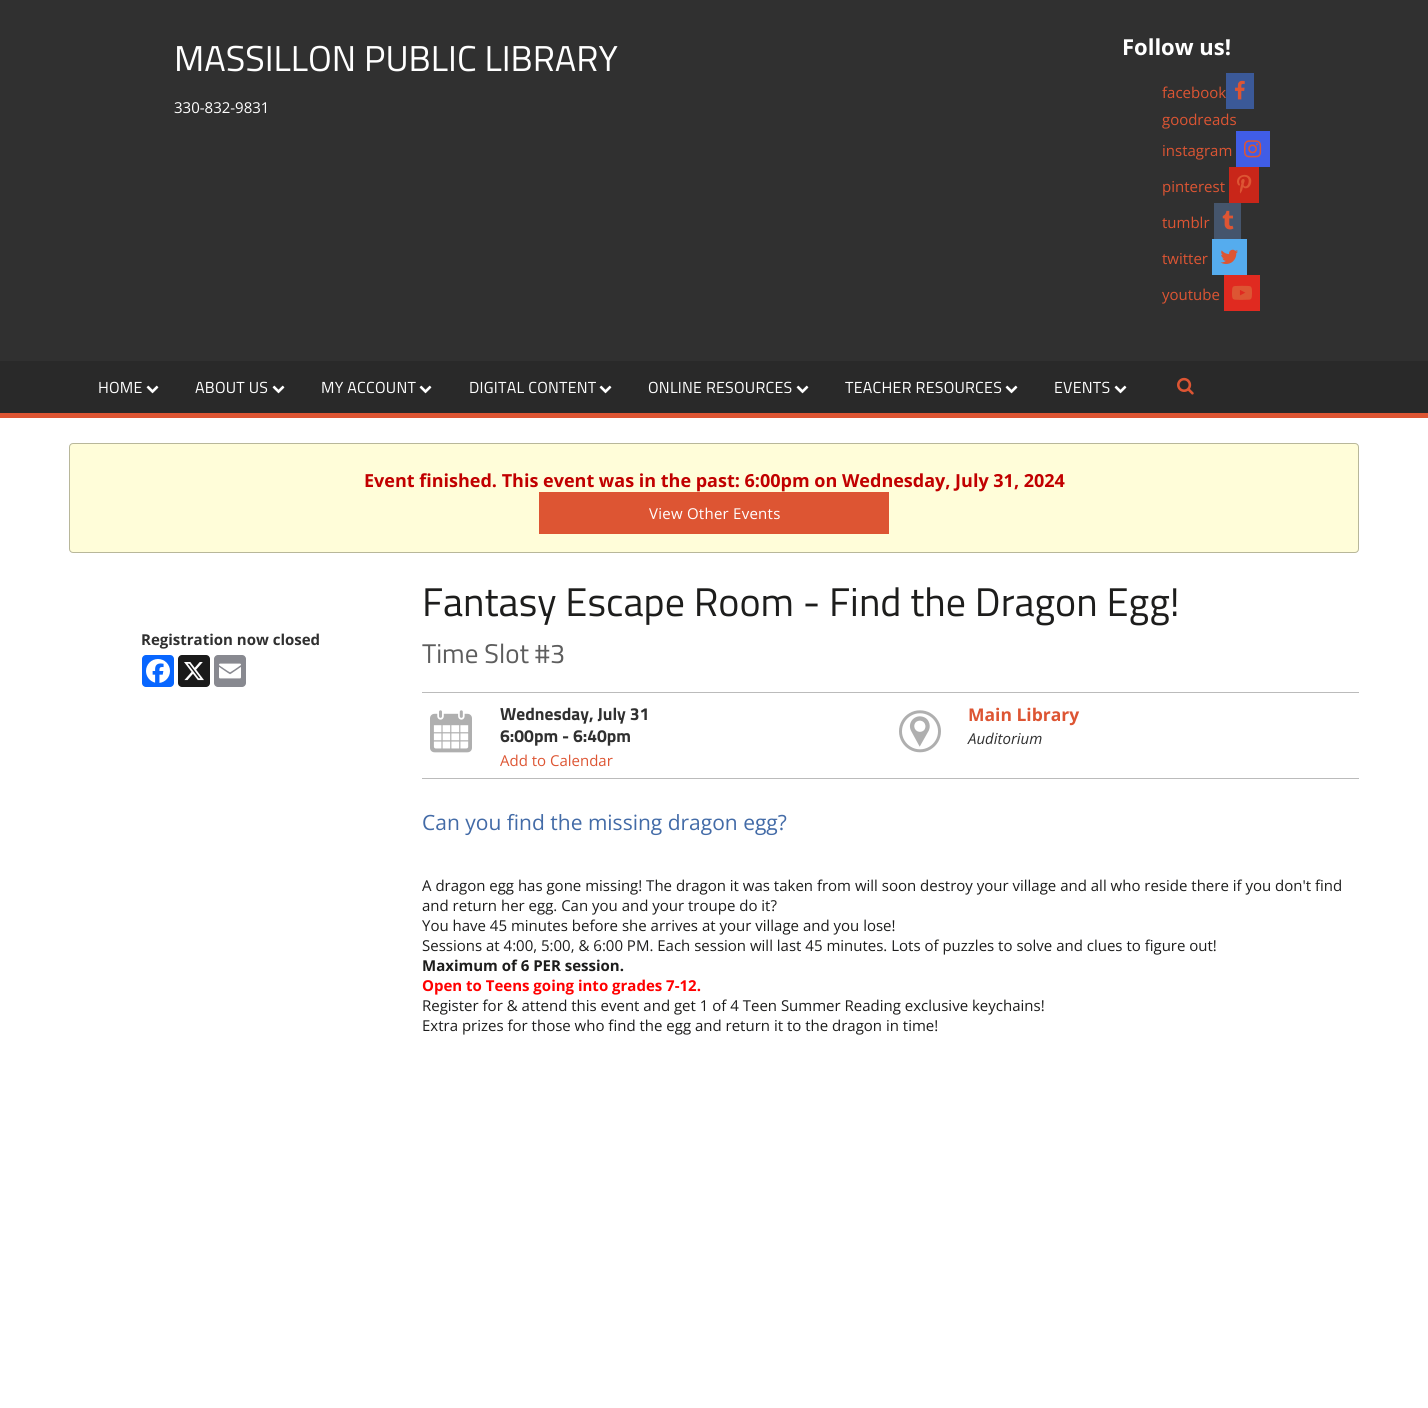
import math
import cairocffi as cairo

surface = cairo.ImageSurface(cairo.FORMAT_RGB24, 1428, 1408)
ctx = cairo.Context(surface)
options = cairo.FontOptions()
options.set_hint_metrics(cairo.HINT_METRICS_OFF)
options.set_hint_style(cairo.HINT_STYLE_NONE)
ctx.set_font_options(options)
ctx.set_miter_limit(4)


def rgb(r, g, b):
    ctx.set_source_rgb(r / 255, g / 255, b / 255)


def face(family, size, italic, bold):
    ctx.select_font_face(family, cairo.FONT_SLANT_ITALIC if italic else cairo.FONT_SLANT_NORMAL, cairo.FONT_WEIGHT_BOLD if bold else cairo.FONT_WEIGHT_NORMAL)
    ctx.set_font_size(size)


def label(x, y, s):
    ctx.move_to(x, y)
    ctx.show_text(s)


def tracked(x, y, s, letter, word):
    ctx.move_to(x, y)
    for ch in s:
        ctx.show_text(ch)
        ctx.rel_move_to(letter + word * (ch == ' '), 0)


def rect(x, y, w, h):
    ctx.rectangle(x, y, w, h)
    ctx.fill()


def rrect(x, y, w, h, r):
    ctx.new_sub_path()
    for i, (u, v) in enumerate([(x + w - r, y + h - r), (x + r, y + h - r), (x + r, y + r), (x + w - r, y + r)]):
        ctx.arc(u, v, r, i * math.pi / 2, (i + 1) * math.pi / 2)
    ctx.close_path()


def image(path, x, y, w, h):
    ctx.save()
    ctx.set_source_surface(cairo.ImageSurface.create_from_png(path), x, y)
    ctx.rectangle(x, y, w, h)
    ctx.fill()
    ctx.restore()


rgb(255, 255, 255)
ctx.paint()
rgb(48, 48, 48)
rect(0, 0, 1428, 361)
face('Titillium Web', 36, 0, 0)
rgb(255, 255, 255)
label(174, 71, 'MASSILLON PUBLIC LIBRARY')
face('Open Sans', 15, 0, 0)
label(174, 113, '330-832-9831')
face('Open Sans', 22, 0, 1)
label(1122, 55, 'Follow us!')
face('Open Sans', 15, 0, 0)
rgb(221, 85, 51)
label(1162, 98, 'facebook')
rgb(59, 89, 152)
rect(1226, 73, 28, 36)
image('image0.png', 1235, 80, 10, 20)
rgb(221, 85, 51)
label(1162, 125, 'goodreads')
label(1162, 156, 'instagram')
rgb(64, 93, 230)
rect(1236, 131, 34, 36)
image('image1.png', 1244, 140, 18, 18)
rgb(221, 85, 51)
label(1162, 192, 'pinterest')
rgb(201, 38, 25)
rect(1229, 167, 30, 36)
image('image2.png', 1237, 174, 15, 20)
rgb(221, 85, 51)
label(1162, 228, 'tumblr')
rgb(69, 85, 108)
rect(1214, 203, 27, 36)
image('image3.png', 1222, 210, 12, 20)
rgb(221, 85, 51)
label(1162, 264, 'twitter')
rgb(85, 172, 238)
rect(1212, 239, 35, 36)
image('image4.png', 1220, 249, 18, 15)
rgb(221, 85, 51)
label(1162, 300, 'youtube')
rgb(224, 42, 32)
rect(1224, 275, 36, 36)
image('image5.png', 1232, 285, 20, 15)
rgb(41, 41, 41)
rect(0, 361, 1428, 52)
rgb(221, 85, 51)
rect(0, 413, 1428, 5)
face('Titillium Web', 16, 0, 0)
rgb(255, 255, 255)
tracked(98, 393, 'HOME', 0.25, 0)
image('image6.png', 146, 385, 13, 9)
tracked(195, 393, 'ABOUT US', 0.25, 0)
image('image6.png', 272, 385, 13, 9)
tracked(321, 393, 'MY ACCOUNT', 0.25, 0)
image('image6.png', 419, 385, 13, 9)
tracked(469, 393, 'DIGITAL CONTENT', 0.25, 0)
image('image6.png', 599, 385, 13, 9)
tracked(648, 393, 'ONLINE RESOURCES', 0.25, 0)
image('image6.png', 796, 385, 13, 9)
tracked(845, 393, 'TEACHER RESOURCES', 0.25, 0)
image('image6.png', 1005, 385, 13, 9)
tracked(1054, 393, 'EVENTS', 0.25, 0)
image('image6.png', 1114, 385, 13, 9)
image('image7.png', 1177, 377, 17, 18)
rgb(255, 253, 217)
rrect(69.5, 443.5, 1289, 109, 3.5)
ctx.fill_preserve()
rgb(184, 183, 154)
ctx.set_line_width(1)
ctx.stroke()
face('Open Sans', 18, 0, 1)
rgb(193, 0, 0)
label(364, 487, 'Event finished. This event was in the past: 6:00pm on Wednesday, July 31, 2024')
rgb(221, 85, 51)
rect(539, 492, 350, 42)
face('Open Sans', 15, 0, 0)
rgb(255, 255, 255)
tracked(649, 519, 'View Other Events', 0.25, 0)
face('Open Sans', 15, 0, 1)
rgb(48, 48, 48)
label(141, 645, 'Registration now closed')
rgb(8, 102, 255)
rrect(142, 655, 32, 32, 4)
ctx.fill()
image('image8.png', 146, 659, 24, 24)
rgb(26, 26, 26)
rrect(178, 655, 32, 32, 4)
ctx.fill()
image('image9.png', 184, 662, 20, 19)
rgb(136, 137, 144)
rrect(214, 655, 32, 32, 4)
ctx.fill()
image('image10.png', 219, 663, 22, 16)
face('Titillium Web', 40, 0, 0)
rgb(29, 29, 28)
label(422, 616, 'Fantasy Escape Room - Find the Dragon Egg!')
face('Titillium Web', 27, 0, 0)
rgb(93, 93, 93)
label(422, 663, 'Time Slot #3')
rgb(187, 187, 187)
rect(422, 692, 937, 1)
image('image11.png', 430, 710, 42, 43)
face('Titillium Web', 17.5, 0, 1)
rgb(48, 48, 48)
label(500, 720, 'Wednesday, July 31')
label(500, 742, '6:00pm - 6:40pm')
face('Open Sans', 15, 0, 0)
rgb(221, 85, 51)
label(500, 766, 'Add to Calendar')
image('image12.png', 899, 710, 42, 43)
face('Open Sans', 17.5, 0, 1)
label(968, 721, 'Main Library')
face('Open Sans', 15, 1, 0)
rgb(48, 48, 48)
label(968, 744, 'Auditorium')
rgb(187, 187, 187)
rect(422, 778, 937, 1)
face('Open Sans', 21, 0, 0)
rgb(67, 107, 167)
label(422, 830, 'Can you find the missing dragon egg?')
face('Open Sans', 15, 0, 0)
rgb(29, 29, 28)
label(422, 891, 'A dragon egg has gone missing! The dragon it was taken from will soon destroy your village and all who reside there if you don\'t find')
label(422, 911, 'and return her egg. Can you and your troupe do it?')
label(422, 931, 'You have 45 minutes before she arrives at your village and you lose!')
label(422, 951, 'Sessions at 4:00, 5:00, & 6:00 PM. Each session will last 45 minutes. Lots of puzzles to solve and clues to figure out!')
face('Open Sans', 15, 0, 1)
label(422, 971, 'Maximum of 6 PER session.')
rgb(255, 0, 0)
label(422, 991, 'Open to Teens going into grades 7-12.')
face('Open Sans', 15, 0, 0)
rgb(29, 29, 28)
label(422, 1011, 'Register for & attend this event and get 1 of 4 Teen Summer Reading exclusive keychains!')
label(422, 1031, 'Extra prizes for those who find the egg and return it to the dragon in time!')
surface.write_to_png('render.png')
